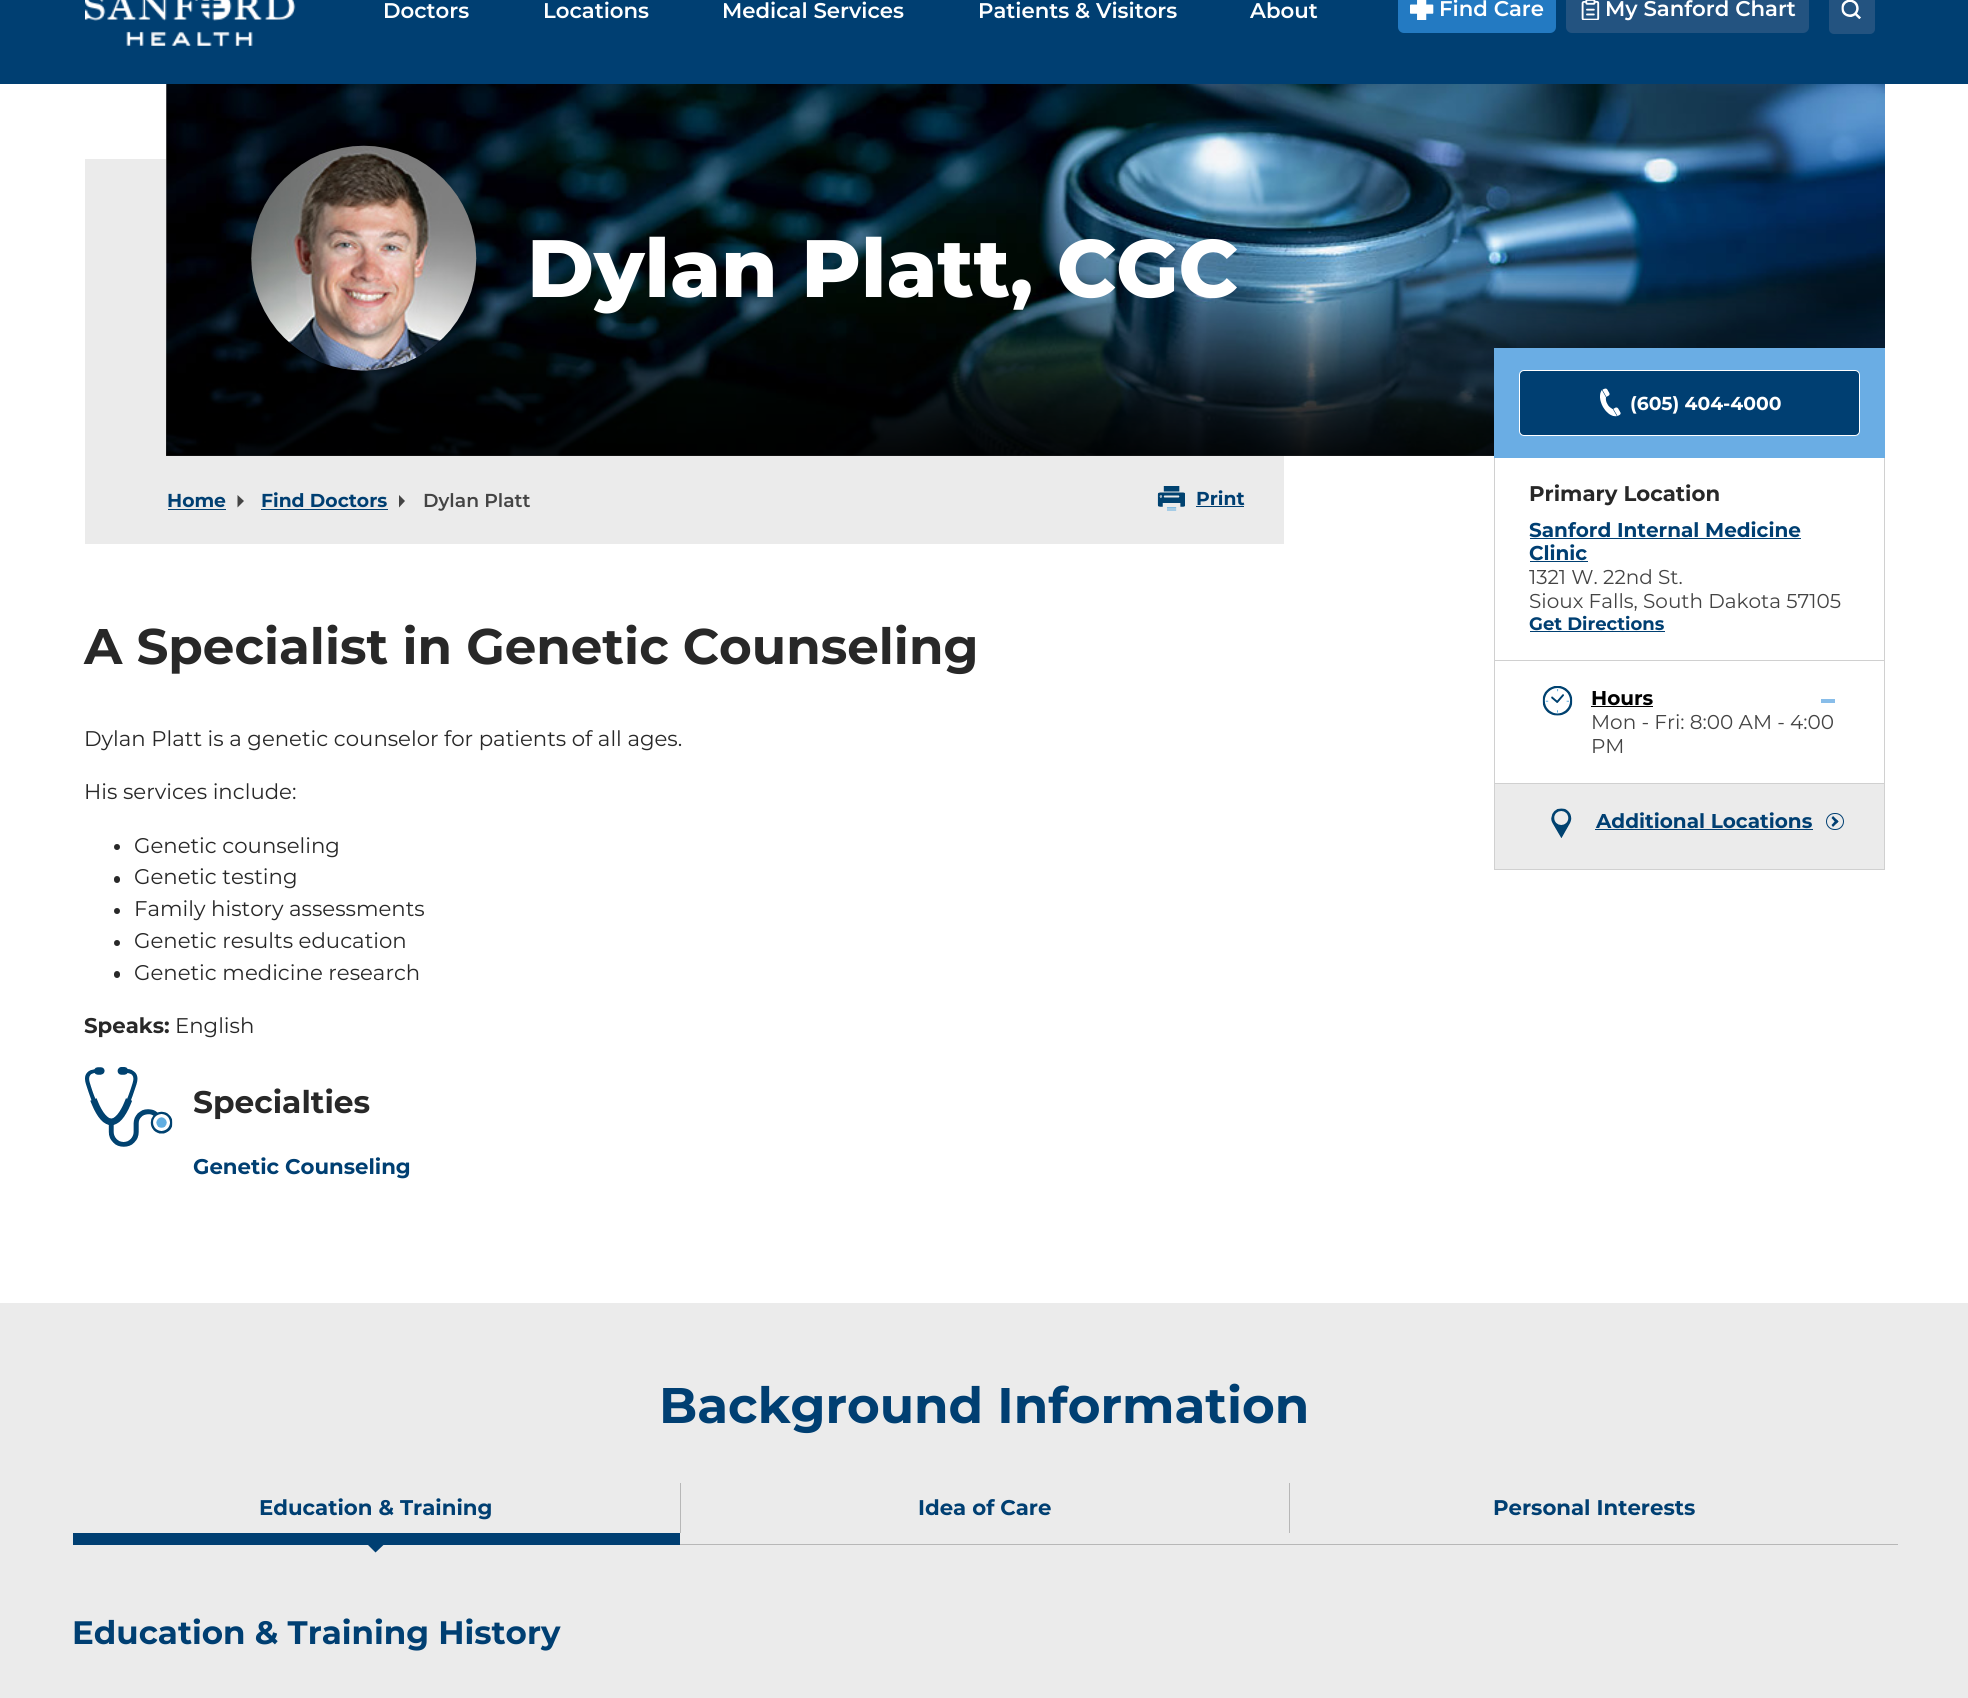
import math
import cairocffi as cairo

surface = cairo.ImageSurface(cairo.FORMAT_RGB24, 1968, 1698)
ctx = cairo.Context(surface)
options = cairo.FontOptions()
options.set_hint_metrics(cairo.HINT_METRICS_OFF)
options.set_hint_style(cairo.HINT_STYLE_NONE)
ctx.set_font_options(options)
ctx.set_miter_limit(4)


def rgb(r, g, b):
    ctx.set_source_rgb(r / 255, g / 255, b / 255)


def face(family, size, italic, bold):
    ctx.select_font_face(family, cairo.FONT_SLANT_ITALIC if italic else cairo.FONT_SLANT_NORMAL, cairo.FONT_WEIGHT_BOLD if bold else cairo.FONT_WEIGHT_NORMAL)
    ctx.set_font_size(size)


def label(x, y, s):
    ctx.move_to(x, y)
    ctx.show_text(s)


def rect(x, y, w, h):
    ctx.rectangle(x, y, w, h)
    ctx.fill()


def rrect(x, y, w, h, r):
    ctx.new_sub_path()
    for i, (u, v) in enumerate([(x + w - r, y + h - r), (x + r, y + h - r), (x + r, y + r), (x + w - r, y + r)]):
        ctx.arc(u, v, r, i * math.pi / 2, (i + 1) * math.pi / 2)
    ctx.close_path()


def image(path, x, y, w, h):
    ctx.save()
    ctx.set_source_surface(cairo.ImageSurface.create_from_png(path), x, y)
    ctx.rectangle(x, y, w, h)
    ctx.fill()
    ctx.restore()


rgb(255, 255, 255)
ctx.paint()
rgb(0, 63, 114)
rect(0, 0, 1968, 84)
image('image0.png', 85, 0, 211, 47)
face('Montserrat SemiBold', 21.25, 0, 0)
rgb(255, 255, 255)
label(383, 18, 'Doctors')
label(543, 18, 'Locations')
label(722, 18, 'Medical Services')
label(978, 18, 'Patients & Visitors')
label(1250, 18, 'About')
rgb(35, 122, 194)
rrect(1398, -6, 158, 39, 6)
ctx.fill()
image('image1.png', 1410, 0, 24, 20)
rgb(255, 255, 255)
label(1439, 16, 'Find Care')
rgb(35, 83, 128)
rrect(1566, -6, 243, 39, 6)
ctx.fill()
image('image2.png', 1581, 0, 19, 20)
rgb(255, 255, 255)
label(1605, 16, 'My Sanford Chart')
rgb(35, 83, 128)
rrect(1829, -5, 46, 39, 5)
ctx.fill()
image('image3.png', 1841, 0, 20, 19)
rgb(235, 235, 235)
rect(85, 159, 81, 297)
image('image4.png', 166, 84, 1719, 372)
gradient = cairo.LinearGradient(1026, 84, 1026, 456)
gradient.add_color_stop_rgba(0, 0, 0, 0, 0)
gradient.add_color_stop_rgba(0.5, 0, 0, 0, 0)
gradient.add_color_stop_rgba(1, 0, 0, 0, 0.75)
ctx.set_source(gradient)
rect(166, 275, 1719, 181)
image('image5.png', 251, 145, 226, 226)
face('Montserrat ExtraBold', 81.25, 0, 0)
rgb(255, 255, 255)
label(527, 297, 'Dylan Platt, CGC')
rgb(235, 235, 235)
rect(85, 456, 1199, 88)
face('Montserrat', 18.75, 0, 1)
rgb(0, 63, 114)
label(167, 507, 'Home')
rect(168, 509, 58, 1)
rgb(68, 68, 68)
ctx.new_path()
ctx.move_to(237.5, 507.5)
ctx.line_to(237.5, 495)
ctx.line_to(244, 501)
ctx.close_path()
ctx.fill()
rgb(0, 63, 114)
label(261, 507, 'Find Doctors')
rect(261, 509, 127, 1)
rgb(68, 68, 68)
ctx.new_path()
ctx.move_to(399, 507.5)
ctx.line_to(399, 495)
ctx.line_to(405, 501)
ctx.close_path()
ctx.fill()
face('Montserrat SemiBold', 18.75, 0, 0)
label(423, 507, 'Dylan Platt')
image('image6.png', 1157, 486, 28, 25)
face('Montserrat', 18.75, 0, 1)
rgb(0, 63, 114)
label(1196, 505, 'Print')
rect(1196, 506, 48, 1)
face('Montserrat', 50, 0, 1)
rgb(40, 40, 40)
label(84, 664, 'A Specialist in Genetic Counseling')
face('Montserrat', 21.25, 0, 0)
label(84, 746, 'Dylan Platt is a genetic counselor for patients of all ages.')
label(84, 799, 'His services include:')
ctx.new_path()
ctx.arc(117, 847, 3, 0, 2 * math.pi)
ctx.fill()
label(134, 853, 'Genetic counseling')
rrect(114, 876, 6, 7, 3)
ctx.fill()
label(134, 884, 'Genetic testing')
ctx.new_path()
ctx.arc(117, 911, 3, 0, 2 * math.pi)
ctx.fill()
label(134, 916, 'Family history assessments')
ctx.new_path()
ctx.arc(117, 943, 3, 0, 2 * math.pi)
ctx.fill()
label(134, 948, 'Genetic results education')
rrect(114, 971, 6, 7, 3)
ctx.fill()
label(134, 980, 'Genetic medicine research')
face('Montserrat', 21.25, 0, 1)
label(84, 1033, 'Speaks:')
face('Montserrat', 21.25, 0, 0)
label(175, 1033, 'English')
image('image7.png', 85, 1067, 88, 80)
face('Montserrat', 31.25, 0, 1)
label(193, 1113, 'Specialties')
face('Montserrat', 21.25, 0, 1)
rgb(0, 63, 114)
label(193, 1174, 'Genetic Counseling')
rgb(106, 173, 228)
rect(1494, 348, 391, 110)
rgb(0, 63, 114)
rrect(1519.5, 370.5, 340, 65, 4.5)
ctx.fill_preserve()
rgb(255, 255, 255)
ctx.set_line_width(1)
ctx.stroke()
image('image8.png', 1600, 388, 21, 29)
face('Montserrat', 18.75, 0, 1)
label(1630, 410, '(605) 404-4000')
rgb(208, 208, 208)
rect(1884, 458, 1, 412)
rect(1494, 869, 391, 1)
rect(1494, 458, 1, 412)
rect(1495, 660, 389, 1)
face('Montserrat', 21.25, 0, 1)
rgb(40, 40, 40)
label(1529, 501, 'Primary Location')
face('Montserrat', 20, 0, 1)
rgb(0, 63, 114)
label(1529, 537, 'Sanford Internal Medicine')
rect(1530, 538, 271, 1)
label(1529, 560, 'Clinic')
rect(1530, 561, 58, 1)
face('Montserrat', 20, 0, 0)
rgb(68, 68, 68)
label(1529, 584, '1321 W. 22nd St.')
label(1529, 608, 'Sioux Falls, South Dakota 57105')
face('Montserrat', 18, 0, 1)
rgb(0, 63, 114)
label(1529, 630, 'Get Directions')
rect(1530, 631, 135, 1)
rgb(208, 208, 208)
rect(1495, 783, 389, 1)
image('image9.png', 1542, 686, 31, 30)
face('Montserrat', 20, 0, 1)
rgb(0, 0, 0)
label(1591, 705, 'Hours')
rect(1591, 706, 62, 1)
rgb(136, 189, 233)
rect(1821, 699, 14, 4)
face('Montserrat', 20, 0, 0)
rgb(68, 68, 68)
label(1591, 729, 'Mon - Fri: 8:00 AM - 4:00')
label(1591, 753, 'PM')
rgb(235, 235, 235)
rect(1495, 784, 389, 85)
image('image10.png', 1551, 808, 21, 30)
face('Montserrat', 20, 0, 1)
rgb(0, 63, 114)
label(1596, 828, 'Additional Locations')
rect(1595, 829, 218, 1)
rrect(1826.5, 813.5, 17, 16, 8)
ctx.stroke()
ctx.new_path()
ctx.move_to(1831.5, 818)
ctx.line_to(1833, 816)
ctx.line_to(1838.5, 821.5)
ctx.line_to(1836.5, 823.5)
ctx.close_path()
ctx.fill()
ctx.new_path()
ctx.move_to(1831.5, 825)
ctx.line_to(1836.5, 819.5)
ctx.line_to(1838.5, 821.5)
ctx.line_to(1833, 827)
ctx.close_path()
ctx.fill()
rgb(235, 235, 235)
rect(0, 1303, 1968, 395)
face('Montserrat', 50, 0, 1)
rgb(0, 63, 114)
label(659, 1423, 'Background Information')
rgb(183, 183, 183)
rect(680, 1483, 1, 50)
face('Montserrat', 21.25, 0, 1)
rgb(0, 63, 114)
label(259, 1515, 'Education & Training')
rect(73, 1533, 607, 12)
ctx.new_path()
ctx.move_to(375.5, 1535)
ctx.line_to(384.5, 1544)
ctx.line_to(375.5, 1552.5)
ctx.line_to(367, 1544)
ctx.close_path()
ctx.fill()
rgb(183, 183, 183)
rect(1289, 1483, 1, 50)
rgb(0, 63, 114)
label(918, 1515, 'Idea of Care')
label(1493, 1515, 'Personal Interests')
rgb(183, 183, 183)
rect(680, 1544, 1218, 1)
face('Montserrat', 32.5, 0, 1)
rgb(0, 63, 114)
label(72, 1644, 'Education & Training History')
surface.write_to_png('render.png')
